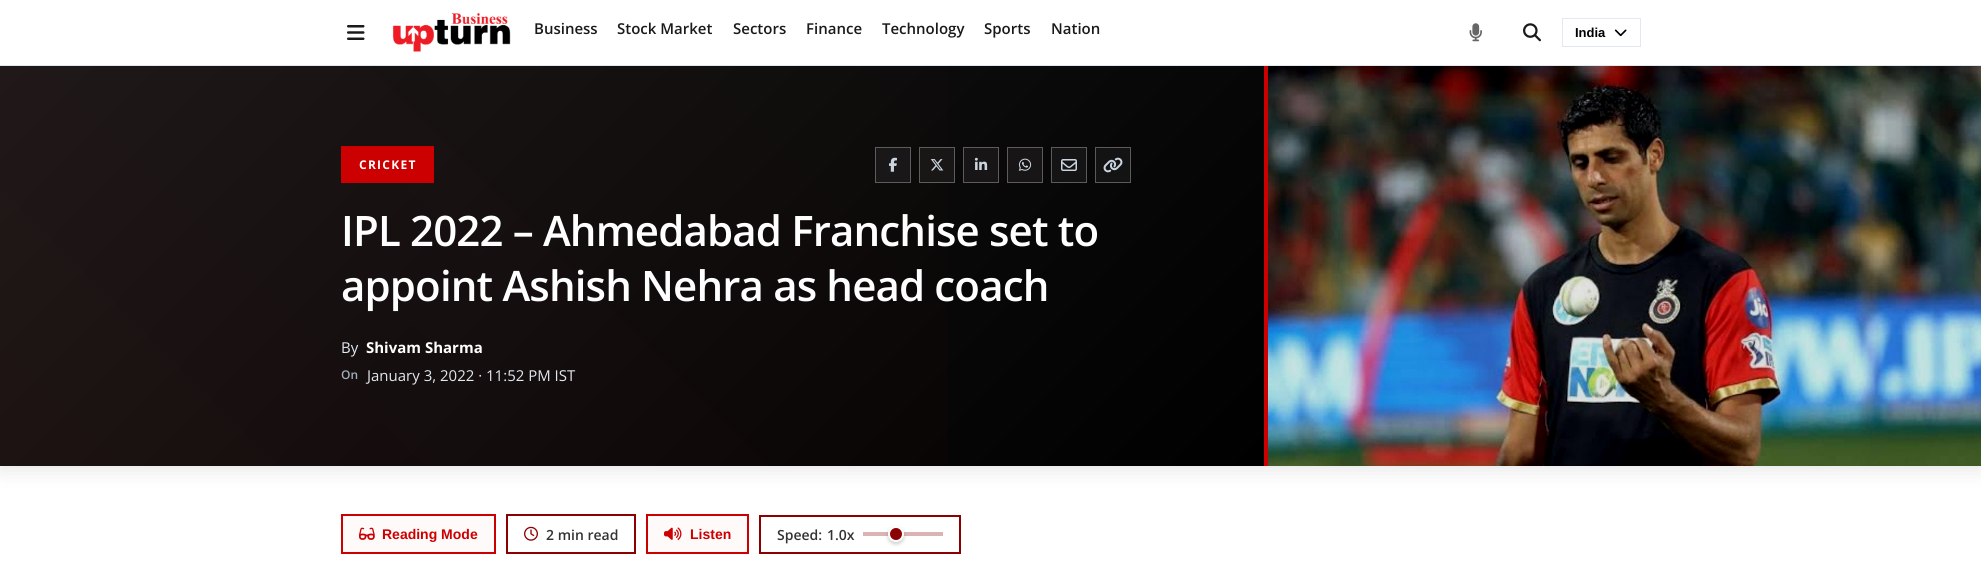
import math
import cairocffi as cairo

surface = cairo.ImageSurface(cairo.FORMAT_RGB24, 1981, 586)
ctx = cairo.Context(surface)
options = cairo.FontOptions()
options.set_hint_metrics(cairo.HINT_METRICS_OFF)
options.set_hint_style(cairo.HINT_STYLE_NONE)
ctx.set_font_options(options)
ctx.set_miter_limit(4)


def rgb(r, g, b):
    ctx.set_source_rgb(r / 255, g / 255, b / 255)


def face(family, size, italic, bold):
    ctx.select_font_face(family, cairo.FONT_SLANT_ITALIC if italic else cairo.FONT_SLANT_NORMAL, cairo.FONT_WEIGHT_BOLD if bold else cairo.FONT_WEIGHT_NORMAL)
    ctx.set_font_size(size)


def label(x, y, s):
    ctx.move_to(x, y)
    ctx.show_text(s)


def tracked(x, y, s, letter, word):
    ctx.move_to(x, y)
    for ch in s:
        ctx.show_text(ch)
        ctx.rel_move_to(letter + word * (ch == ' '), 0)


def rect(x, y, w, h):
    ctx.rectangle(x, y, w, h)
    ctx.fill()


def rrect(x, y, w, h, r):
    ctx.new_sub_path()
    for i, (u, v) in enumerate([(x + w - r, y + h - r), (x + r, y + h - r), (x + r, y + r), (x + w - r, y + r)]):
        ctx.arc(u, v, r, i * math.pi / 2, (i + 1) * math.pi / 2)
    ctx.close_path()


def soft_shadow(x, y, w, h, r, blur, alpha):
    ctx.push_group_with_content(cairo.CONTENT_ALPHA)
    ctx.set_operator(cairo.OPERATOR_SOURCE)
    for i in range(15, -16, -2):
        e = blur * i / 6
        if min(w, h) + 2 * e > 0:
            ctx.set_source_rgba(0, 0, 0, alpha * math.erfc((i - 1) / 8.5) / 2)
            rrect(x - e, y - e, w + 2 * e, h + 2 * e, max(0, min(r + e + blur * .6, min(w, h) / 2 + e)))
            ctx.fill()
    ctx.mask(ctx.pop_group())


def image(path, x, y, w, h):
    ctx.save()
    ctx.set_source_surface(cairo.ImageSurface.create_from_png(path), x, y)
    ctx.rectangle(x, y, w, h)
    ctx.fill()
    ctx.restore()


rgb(255, 255, 255)
ctx.paint()
rgb(0, 0, 0)
soft_shadow(0, 69, 1981, 401, 0, 10, 0.1)
gradient = cairo.LinearGradient(216, -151, 1048, 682)
gradient.add_color_stop_rgba(0, 0.102, 0.102, 0.102, 1)
gradient.add_color_stop_rgba(1, 0, 0, 0, 1)
ctx.set_source(gradient)
rect(0, 66, 1264, 400)
rgb(204, 0, 0)
rect(1264, 65, 4, 401)
rect(341, 146, 93, 37)
gradient = cairo.LinearGradient(216, 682, 1048, -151)
gradient.add_color_stop_rgba(0, 0.8, 0, 0, 0.05)
gradient.add_color_stop_rgba(1, 0.8, 0, 0, 0)
ctx.set_source(gradient)
rect(0, 66, 947, 400)
image('image11.png', 1268, 66, 713, 400)
rgb(0, 0, 0)
soft_shadow(0, 2, 1981, 66, 0, 3, 0.06)
rgb(255, 255, 255)
rect(0, 0, 1981, 65)
rgb(226, 232, 240)
rect(0, 65, 1981, 1)
image('image0.png', 347, 25, 18, 15)
image('image1.png', 392, 13, 119, 39)
face('Open Sans SemiBold', 15, 0, 0)
rgb(26, 26, 26)
label(534, 34, 'Business')
label(617, 34, 'Stock Market')
label(733, 34, 'Sectors')
label(806, 34, 'Finance')
label(882, 34, 'Technology')
label(984, 34, 'Sports')
label(1051, 34, 'Nation')
image('image2.png', 1469, 23, 13, 19)
image('image3.png', 1523, 23, 18, 19)
ctx.rectangle(1562.5, 18.5, 78, 28)
rgb(226, 232, 240)
ctx.set_line_width(1)
ctx.stroke()
face('Liberation Sans', 13, 0, 1)
rgb(0, 0, 0)
label(1575, 37, 'India')
image('image4.png', 1614, 29, 13, 8)
face('Open Sans', 12, 0, 1)
rgb(255, 255, 255)
tracked(359, 169, 'CRICKET', 1.25, 0)
rgb(25, 23, 23)
ctx.rectangle(875.5, 147.5, 35, 35)
ctx.fill_preserve()
rgb(94, 93, 93)
ctx.stroke()
image('image5.png', 889, 157, 8, 15)
rgb(25, 22, 22)
ctx.rectangle(919.5, 147.5, 35, 35)
ctx.fill_preserve()
rgb(94, 92, 92)
ctx.stroke()
image('image6.png', 930, 159, 14, 12)
rgb(23, 21, 21)
ctx.rectangle(963.5, 147.5, 35, 35)
ctx.fill_preserve()
rgb(93, 91, 91)
ctx.stroke()
image('image7.png', 974, 157, 14, 13)
rgb(23, 21, 21)
ctx.rectangle(1007.5, 147.5, 35, 35)
ctx.fill_preserve()
rgb(93, 91, 91)
ctx.stroke()
image('image8.png', 1018, 158, 14, 13)
rgb(20, 20, 20)
ctx.rectangle(1051.5, 147.5, 35, 35)
ctx.fill_preserve()
rgb(91, 91, 91)
ctx.stroke()
image('image9.png', 1061, 159, 16, 12)
rgb(19, 19, 19)
ctx.rectangle(1095.5, 147.5, 35, 35)
ctx.fill_preserve()
rgb(90, 90, 90)
ctx.stroke()
image('image10.png', 1103, 157, 20, 16)
face('Open Sans SemiBold', 42, 0, 0)
rgb(255, 255, 255)
tracked(341, 246, 'IPL 2022 – Ahmedabad Franchise set to', -0.85, 0)
tracked(341, 301, 'appoint Ashish Nehra as head coach', -0.85, 0)
face('Open Sans', 15, 0, 0)
rgb(226, 232, 240)
label(341, 353, 'By')
face('Open Sans', 15, 0, 1)
rgb(255, 255, 255)
label(366, 353, 'Shivam Sharma')
face('Open Sans SemiBold', 12, 0, 0)
rgb(160, 174, 192)
label(341, 379, 'On')
face('Open Sans', 15, 0, 0)
rgb(226, 232, 240)
label(367, 381, 'January 3, 2022 · 11:52 PM IST')
rgb(254, 250, 250)
ctx.rectangle(342, 515, 153, 38)
ctx.fill_preserve()
rgb(204, 0, 0)
ctx.set_line_width(2)
ctx.stroke()
image('image12.png', 359, 527, 16, 13)
face('Liberation Sans', 14, 0, 1)
label(382, 539, 'Reading Mode')
ctx.rectangle(507, 515, 128, 38)
rgb(139, 0, 0)
ctx.stroke()
image('image13.png', 524, 526, 14, 15)
face('Open Sans SemiBold', 14, 0, 0)
rgb(51, 51, 51)
label(546, 540, '2 min read')
rgb(254, 250, 250)
ctx.rectangle(647, 515, 101, 38)
ctx.fill_preserve()
rgb(204, 0, 0)
ctx.stroke()
image('image14.png', 664, 527, 18, 13)
face('Liberation Sans', 14, 0, 1)
label(690, 539, 'Listen')
ctx.rectangle(760, 516, 200, 37)
rgb(139, 0, 0)
ctx.stroke()
face('Open Sans SemiBold', 14, 0, 0)
rgb(51, 51, 51)
label(777, 540, 'Speed:')
label(827, 540, '1.0x')
rgb(220, 179, 179)
rect(863, 532, 80, 4)
rgb(0, 0, 0)
soft_shadow(888, 528, 16, 16, 8, 2, 0.2)
rgb(139, 0, 0)
ctx.arc(896, 534, 7, 0, 2 * math.pi)
ctx.fill_preserve()
rgb(255, 255, 255)
ctx.stroke()
surface.write_to_png('render.png')
